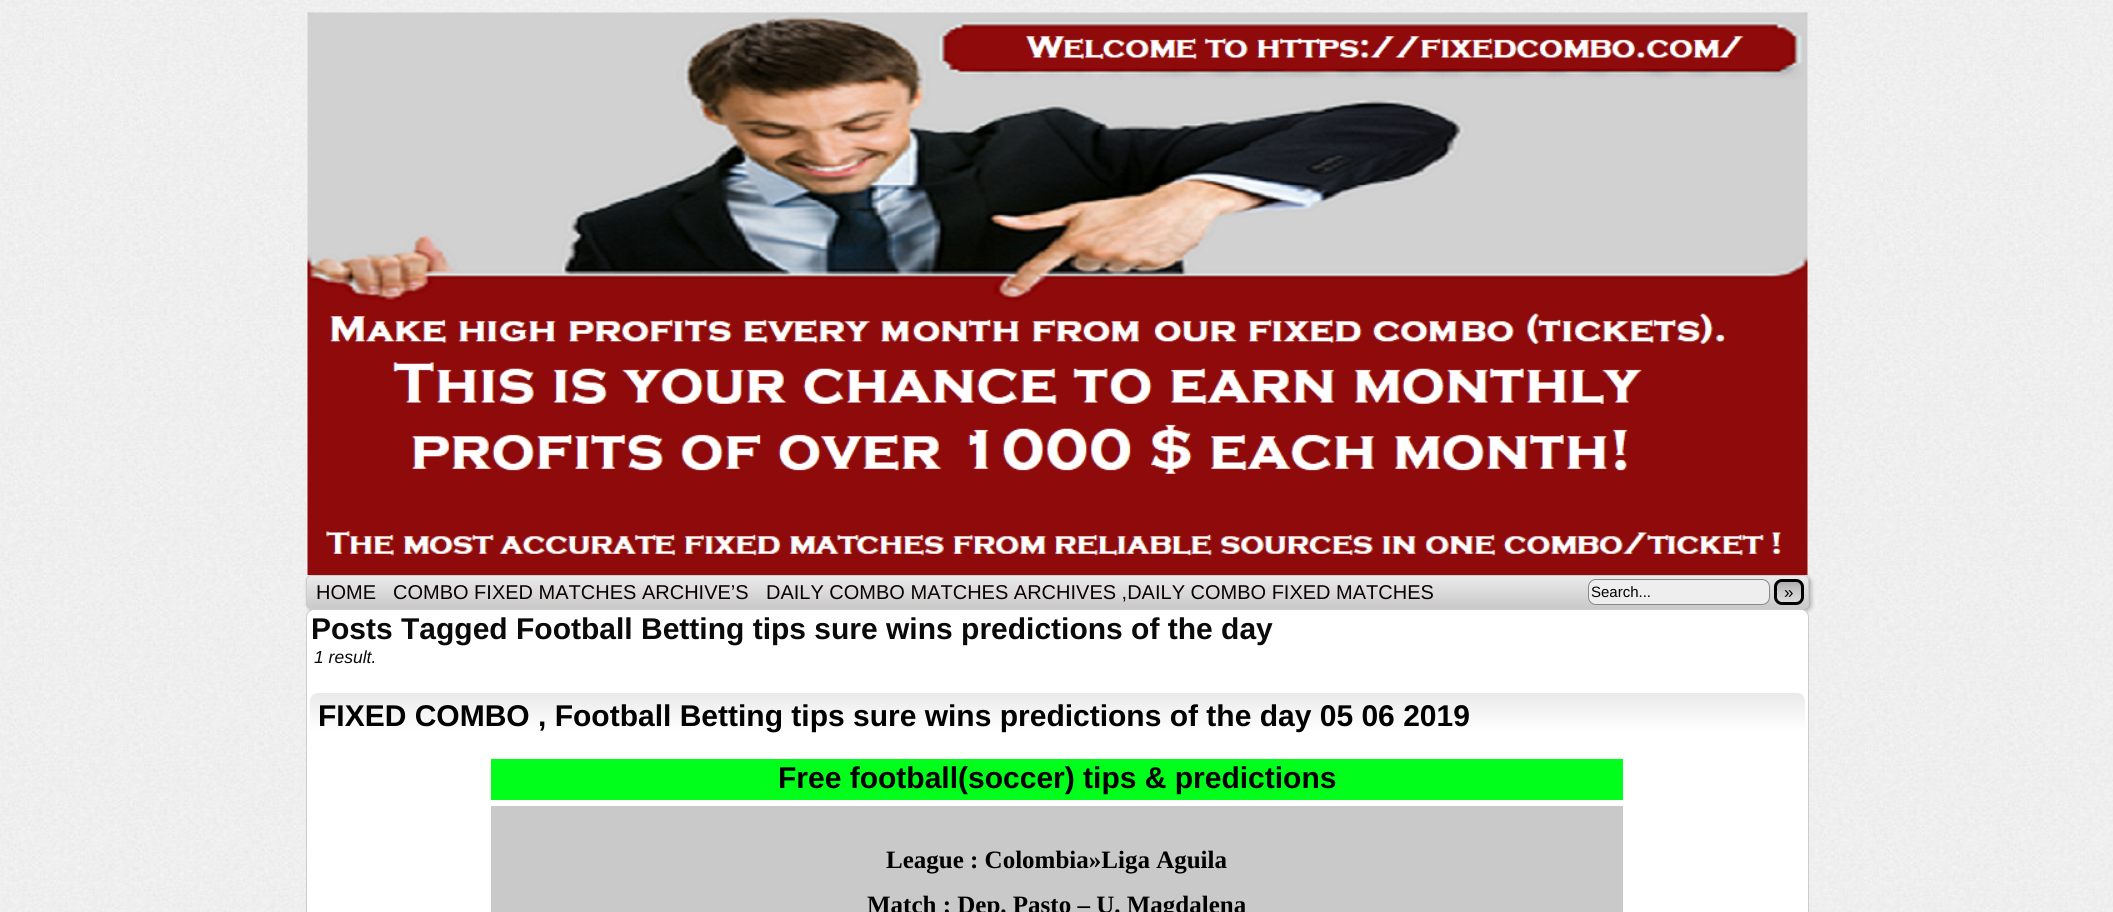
import math
import cairocffi as cairo

surface = cairo.ImageSurface(cairo.FORMAT_RGB24, 2113, 912)
ctx = cairo.Context(surface)
options = cairo.FontOptions()
options.set_hint_metrics(cairo.HINT_METRICS_OFF)
options.set_hint_style(cairo.HINT_STYLE_NONE)
ctx.set_font_options(options)
ctx.set_miter_limit(4)


def rgb(r, g, b):
    ctx.set_source_rgb(r / 255, g / 255, b / 255)


def face(family, size, italic, bold):
    ctx.select_font_face(family, cairo.FONT_SLANT_ITALIC if italic else cairo.FONT_SLANT_NORMAL, cairo.FONT_WEIGHT_BOLD if bold else cairo.FONT_WEIGHT_NORMAL)
    ctx.set_font_size(size)


def label(x, y, s):
    ctx.move_to(x, y)
    ctx.show_text(s)


def rect(x, y, w, h):
    ctx.rectangle(x, y, w, h)
    ctx.fill()


def rrect(x, y, w, h, r):
    ctx.new_sub_path()
    for i, (u, v) in enumerate([(x + w - r, y + h - r), (x + r, y + h - r), (x + r, y + r), (x + w - r, y + r)]):
        ctx.arc(u, v, r, i * math.pi / 2, (i + 1) * math.pi / 2)
    ctx.close_path()


def soft_shadow(x, y, w, h, r, blur, alpha):
    ctx.push_group_with_content(cairo.CONTENT_ALPHA)
    ctx.set_operator(cairo.OPERATOR_SOURCE)
    for i in range(15, -16, -2):
        e = blur * i / 6
        if min(w, h) + 2 * e > 0:
            ctx.set_source_rgba(0, 0, 0, alpha * math.erfc((i - 1) / 8.5) / 2)
            rrect(x - e, y - e, w + 2 * e, h + 2 * e, max(0, min(r + e + blur * .6, min(w, h) / 2 + e)))
            ctx.fill()
    ctx.mask(ctx.pop_group())


def image(path, x, y, w, h):
    ctx.save()
    ctx.set_source_surface(cairo.ImageSurface.create_from_png(path), x, y)
    ctx.rectangle(x, y, w, h)
    ctx.fill()
    ctx.restore()


rgb(255, 255, 255)
ctx.paint()
image('image0.png', 0, 0, 2113, 912)
rgb(0, 0, 0)
soft_shadow(309, 578, 1502, 33, 5, 2.5, 0.2)
rgb(20, 20, 20)
soft_shadow(308, 576, 1502, 34, 5, 2, 0.2)
image('image1.png', 307, 12, 1501, 563)
ctx.save()
rrect(306, 575, 1503, 34, 5)
ctx.clip()
gradient = cairo.LinearGradient(1058, 576, 1058, 608)
gradient.add_color_stop_rgba(0, 0.918, 0.918, 0.918, 1)
gradient.add_color_stop_rgba(1, 0.792, 0.792, 0.792, 1)
ctx.set_source(gradient)
rect(306, 576, 1503, 32)
ctx.restore()
rrect(306.5, 575.5, 1502, 33, 4.5)
rgb(204, 204, 204)
ctx.set_line_width(1)
ctx.stroke()
face('Liberation Sans', 20, 0, 0)
rgb(10, 0, 0)
label(316, 599, 'HOME')
label(393, 599, 'COMBO FIXED MATCHES ARCHIVE’S')
label(766, 599, 'DAILY COMBO MATCHES ARCHIVES ,DAILY COMBO FIXED MATCHES')
rgb(238, 238, 238)
rrect(1588.5, 579.5, 181, 25, 7.5)
ctx.fill_preserve()
rgb(136, 136, 136)
ctx.stroke()
face('Liberation Sans', 15, 0, 0)
rgb(0, 0, 0)
label(1591, 597, 'Search...')
ctx.save()
rrect(1774, 579, 30, 26, 8)
ctx.clip()
gradient = cairo.LinearGradient(1789, 581, 1789, 603)
gradient.add_color_stop_rgba(0, 0.667, 0.667, 0.667, 1)
gradient.add_color_stop_rgba(0.5, 0.8, 0.8, 0.8, 1)
gradient.add_color_stop_rgba(1, 0.867, 0.867, 0.867, 1)
ctx.set_source(gradient)
rect(1774, 581, 30, 22)
ctx.restore()
rrect(1775.5, 580.5, 27, 23, 6.5)
ctx.set_line_width(3)
ctx.stroke()
face('Liberation Sans', 17, 0, 0)
label(1784, 598, '»')
rgb(255, 255, 255)
rrect(306.5, 609.5, 1502, 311, 7.5)
ctx.fill_preserve()
rgb(204, 204, 204)
ctx.set_line_width(1)
ctx.stroke()
face('Liberation Sans', 30, 0, 1)
rgb(10, 10, 10)
label(311, 639, 'Posts Tagged Football Betting tips sure wins predictions of the day')
face('Liberation Sans', 17.5, 1, 0)
label(314, 663, '1 result.')
gradient = cairo.LinearGradient(1058, 692, 1058, 740)
gradient.add_color_stop_rgba(0, 0.914, 0.914, 0.914, 1)
gradient.add_color_stop_rgba(0.8, 1, 1, 1, 1)
gradient.add_color_stop_rgba(1, 1, 1, 1, 1)
ctx.set_source(gradient)
rrect(310, 693, 1495, 47, 8)
ctx.fill()
face('Liberation Sans', 30, 0, 1)
rgb(0, 0, 0)
label(318, 726, 'FIXED COMBO , Football Betting tips sure wins predictions of the day 05 06 2019')
rgb(0, 255, 26)
rect(491, 759, 1132, 41)
rgb(0, 0, 0)
label(778, 788, 'Free football(soccer) tips & predictions')
rgb(201, 201, 201)
rect(491, 806, 1132, 106)
face('Liberation Serif', 25, 0, 1)
rgb(0, 0, 0)
label(886, 868, 'League : Colombia»Liga Aguila')
label(867, 913, 'Match : Dep. Pasto – U. Magdalena')
surface.write_to_png('render.png')
